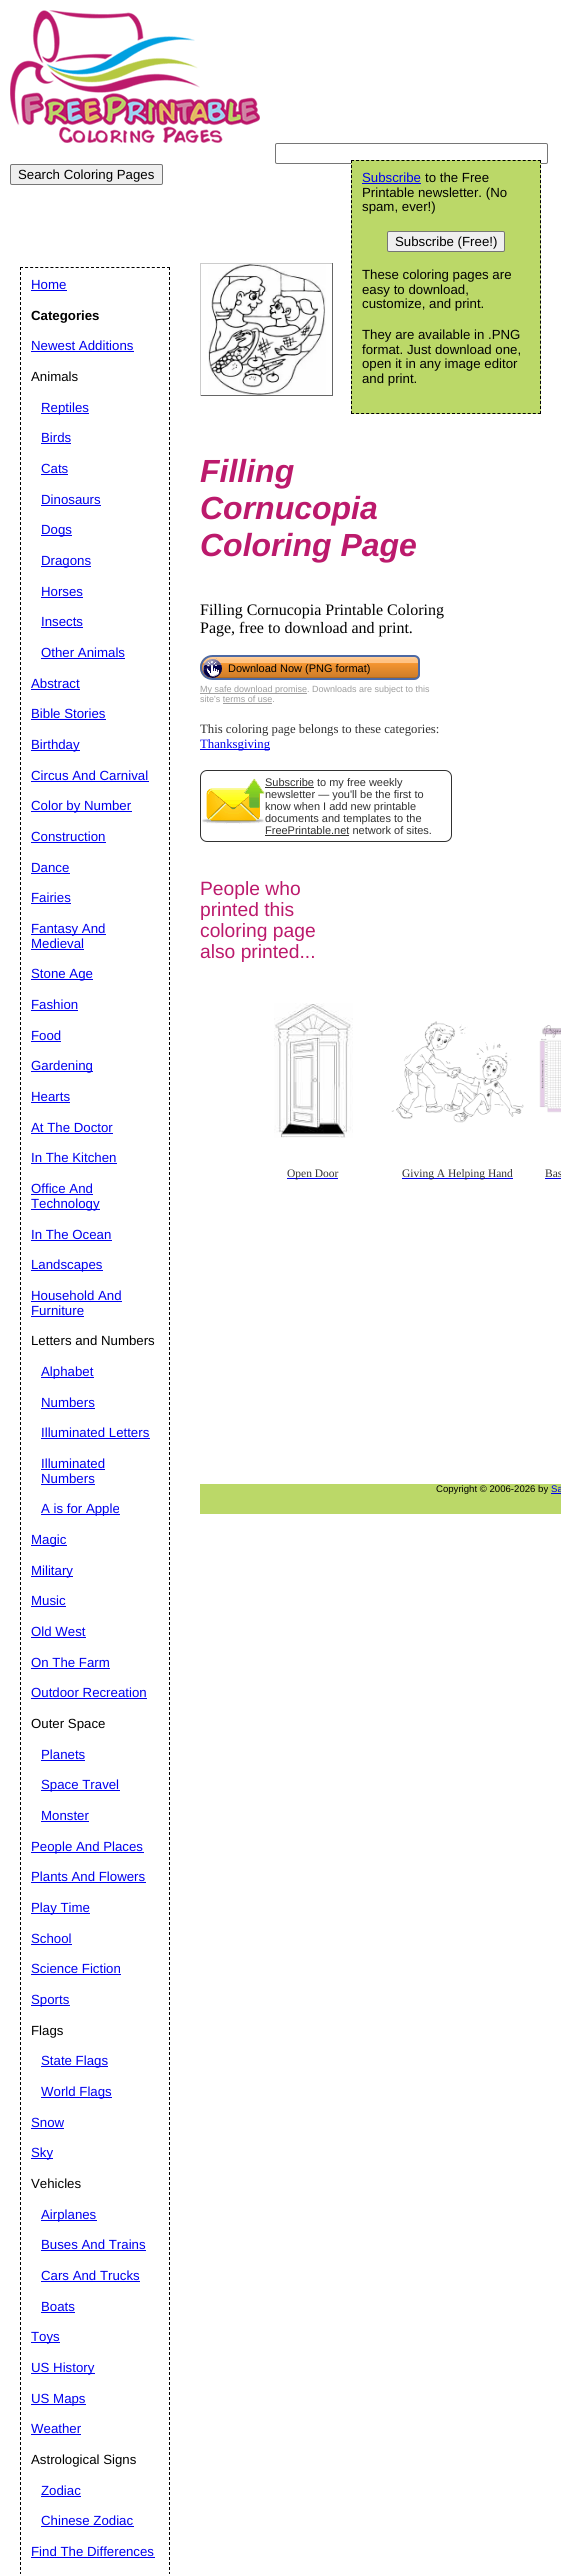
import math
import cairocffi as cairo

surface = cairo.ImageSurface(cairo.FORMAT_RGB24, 561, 2574)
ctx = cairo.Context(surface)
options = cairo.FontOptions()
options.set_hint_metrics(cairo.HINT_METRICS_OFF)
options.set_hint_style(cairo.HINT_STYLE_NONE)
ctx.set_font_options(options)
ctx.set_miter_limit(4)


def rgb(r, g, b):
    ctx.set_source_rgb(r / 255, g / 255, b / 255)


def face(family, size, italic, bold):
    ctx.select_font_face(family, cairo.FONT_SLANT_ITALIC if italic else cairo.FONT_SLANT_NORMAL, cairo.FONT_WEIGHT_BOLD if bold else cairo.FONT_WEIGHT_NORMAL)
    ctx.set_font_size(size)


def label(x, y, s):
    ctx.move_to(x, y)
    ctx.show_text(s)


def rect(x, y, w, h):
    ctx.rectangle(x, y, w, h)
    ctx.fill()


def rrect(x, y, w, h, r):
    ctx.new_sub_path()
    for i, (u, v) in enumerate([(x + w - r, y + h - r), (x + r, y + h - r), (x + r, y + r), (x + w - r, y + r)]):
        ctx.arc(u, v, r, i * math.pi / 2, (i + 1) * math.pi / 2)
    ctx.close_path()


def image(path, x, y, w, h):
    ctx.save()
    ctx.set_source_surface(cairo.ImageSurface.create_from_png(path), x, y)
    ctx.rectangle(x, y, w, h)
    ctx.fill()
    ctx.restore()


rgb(255, 255, 255)
ctx.paint()
image('image0.png', 10, 10, 250, 133)
rrect(275.5, 143.5, 272, 20, 1.5)
rgb(118, 118, 118)
ctx.set_line_width(1)
ctx.stroke()
rgb(239, 239, 239)
rrect(10.5, 164.5, 152, 20, 1.5)
ctx.fill_preserve()
rgb(118, 118, 118)
ctx.stroke()
face('Liberation Sans', 13.25, 0, 0)
rgb(0, 0, 0)
label(18, 179, 'Search Coloring Pages')
rgb(187, 216, 104)
rect(351, 160, 190, 254)
ctx.new_path()
ctx.move_to(351, 160.5)
ctx.line_to(541, 160.5)
rgb(0, 0, 0)
ctx.set_dash([3, 2.05])
ctx.stroke()
ctx.new_path()
ctx.move_to(540.5, 160)
ctx.line_to(540.5, 414)
ctx.set_dash([3, 2.02])
ctx.stroke()
ctx.new_path()
ctx.move_to(351, 413.5)
ctx.line_to(541, 413.5)
ctx.set_dash([3, 2.05])
ctx.stroke()
ctx.new_path()
ctx.move_to(351.5, 160)
ctx.line_to(351.5, 414)
ctx.set_dash([3, 2.02])
ctx.stroke()
rgb(0, 0, 238)
label(362, 182, 'Subscribe')
rect(362, 183, 59, 1)
rgb(0, 0, 0)
label(425, 182, 'to the Free')
label(362, 197, 'Printable newsletter. (No')
label(362, 211, 'spam, ever!)')
rgb(239, 239, 239)
rrect(387.5, 231.5, 117, 20, 1.5)
ctx.fill_preserve()
rgb(118, 118, 118)
ctx.set_dash([])
ctx.stroke()
rgb(0, 0, 0)
label(395, 246, 'Subscribe (Free!)')
label(362, 279, 'These coloring pages are')
label(362, 294, 'easy to download,')
label(362, 308, 'customize, and print.')
label(362, 339, 'They are available in .PNG')
label(362, 354, 'format. Just download one,')
label(362, 368, 'open it in any image editor')
label(362, 383, 'and print.')
ctx.new_path()
ctx.move_to(20, 267.5)
ctx.line_to(170, 267.5)
ctx.set_dash([3, 2.07])
ctx.stroke()
ctx.new_path()
ctx.move_to(169.5, 267)
ctx.line_to(169.5, 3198)
ctx.set_dash([3, 2])
ctx.stroke()
ctx.new_path()
ctx.move_to(20.5, 267)
ctx.line_to(20.5, 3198)
ctx.stroke()
rgb(0, 0, 238)
label(31, 289, 'Home')
rect(31, 290, 36, 1)
face('Liberation Sans', 13.25, 0, 1)
rgb(0, 0, 0)
label(31, 320, 'Categories')
face('Liberation Sans', 13.25, 0, 0)
rgb(0, 0, 238)
label(31, 350, 'Newest Additions')
rect(31, 351, 103, 1)
rgb(0, 0, 0)
label(31, 381, 'Animals')
rgb(0, 0, 238)
rect(41, 413, 48, 1)
label(41, 412, 'Reptiles')
label(41, 442, 'Birds')
rect(41, 443, 30, 1)
label(41, 473, 'Cats')
rect(41, 474, 27, 1)
label(41, 504, 'Dinosaurs')
rect(41, 505, 60, 1)
rect(41, 535, 31, 1)
label(41, 534, 'Dogs')
rect(41, 566, 50, 1)
label(41, 565, 'Dragons')
label(41, 596, 'Horses')
rect(41, 597, 42, 1)
label(41, 626, 'Insects')
rect(41, 627, 42, 1)
label(41, 657, 'Other Animals')
rect(41, 658, 84, 1)
label(31, 688, 'Abstract')
rect(31, 689, 49, 1)
label(31, 718, 'Bible Stories')
rect(31, 719, 75, 1)
rect(31, 750, 49, 1)
label(31, 749, 'Birthday')
label(31, 780, 'Circus And Carnival')
rect(31, 781, 118, 1)
rect(31, 811, 101, 1)
label(31, 810, 'Color by Number')
label(31, 841, 'Construction')
rect(31, 842, 75, 1)
label(31, 872, 'Dance')
rect(31, 873, 39, 1)
label(31, 902, 'Fairies')
rect(31, 903, 40, 1)
rect(31, 934, 75, 1)
label(31, 933, 'Fantasy And')
label(31, 948, 'Medieval')
rect(31, 949, 53, 1)
rect(31, 979, 62, 1)
label(31, 978, 'Stone Age')
label(31, 1009, 'Fashion')
rect(31, 1010, 47, 1)
label(31, 1040, 'Food')
rect(31, 1041, 30, 1)
rect(31, 1071, 62, 1)
label(31, 1070, 'Gardening')
label(31, 1101, 'Hearts')
rect(31, 1102, 39, 1)
label(31, 1132, 'At The Doctor')
rect(31, 1133, 82, 1)
label(31, 1162, 'In The Kitchen')
rect(31, 1163, 86, 1)
label(31, 1193, 'Office And')
rect(31, 1194, 62, 1)
rect(31, 1209, 69, 1)
label(31, 1208, 'Technology')
label(31, 1239, 'In The Ocean')
rect(31, 1240, 81, 1)
rect(31, 1270, 72, 1)
label(31, 1269, 'Landscapes')
label(31, 1300, 'Household And')
rect(31, 1301, 91, 1)
label(31, 1315, 'Furniture')
rect(31, 1316, 53, 1)
rgb(0, 0, 0)
label(31, 1345, 'Letters and Numbers')
rgb(0, 0, 238)
rect(41, 1377, 53, 1)
label(41, 1376, 'Alphabet')
label(41, 1407, 'Numbers')
rect(41, 1408, 54, 1)
label(41, 1437, 'Illuminated Letters')
rect(41, 1438, 109, 1)
label(41, 1468, 'Illuminated')
rect(41, 1469, 64, 1)
label(41, 1483, 'Numbers')
rect(41, 1484, 54, 1)
rect(41, 1514, 79, 1)
label(41, 1513, 'A is for Apple')
rect(31, 1545, 36, 1)
label(31, 1544, 'Magic')
rect(31, 1576, 42, 1)
label(31, 1575, 'Military')
label(31, 1605, 'Music')
rect(31, 1606, 35, 1)
label(31, 1636, 'Old West')
rect(31, 1637, 55, 1)
label(31, 1667, 'On The Farm')
rect(31, 1668, 79, 1)
label(31, 1697, 'Outdoor Recreation')
rect(31, 1698, 116, 1)
rgb(0, 0, 0)
label(31, 1728, 'Outer Space')
rgb(0, 0, 238)
label(41, 1759, 'Planets')
rect(41, 1760, 44, 1)
rect(41, 1790, 79, 1)
label(41, 1789, 'Space Travel')
label(41, 1820, 'Monster')
rect(41, 1821, 48, 1)
rect(31, 1852, 113, 1)
label(31, 1851, 'People And Places')
label(31, 1881, 'Plants And Flowers')
rect(31, 1882, 115, 1)
rect(31, 1913, 59, 1)
label(31, 1912, 'Play Time')
label(31, 1943, 'School')
rect(31, 1944, 41, 1)
label(31, 1973, 'Science Fiction')
rect(31, 1974, 90, 1)
rect(31, 2005, 39, 1)
label(31, 2004, 'Sports')
rgb(0, 0, 0)
label(31, 2035, 'Flags')
rgb(0, 0, 238)
rect(41, 2066, 67, 1)
label(41, 2065, 'State Flags')
rect(41, 2097, 71, 1)
label(41, 2096, 'World Flags')
label(31, 2127, 'Snow')
rect(31, 2128, 33, 1)
rect(31, 2158, 22, 1)
label(31, 2157, 'Sky')
rgb(0, 0, 0)
label(31, 2188, 'Vehicles')
rgb(0, 0, 238)
rect(41, 2220, 56, 1)
label(41, 2219, 'Airplanes')
label(41, 2249, 'Buses And Trains')
rect(41, 2250, 105, 1)
label(41, 2280, 'Cars And Trucks')
rect(41, 2281, 99, 1)
label(41, 2311, 'Boats')
rect(41, 2312, 34, 1)
rect(31, 2342, 29, 1)
label(31, 2341, 'Toys')
rect(31, 2373, 64, 1)
label(31, 2372, 'US History')
rect(31, 2404, 55, 1)
label(31, 2403, 'US Maps')
label(31, 2433, 'Weather')
rect(31, 2434, 50, 1)
rgb(0, 0, 0)
label(31, 2464, 'Astrological Signs')
rgb(0, 0, 238)
label(41, 2495, 'Zodiac')
rect(41, 2496, 40, 1)
label(41, 2525, 'Chinese Zodiac')
rect(41, 2526, 93, 1)
label(31, 2556, 'Find The Differences')
rect(31, 2557, 124, 1)
rgb(204, 204, 204)
rect(200, 263, 133, 1)
rgb(102, 102, 102)
rect(332, 263, 1, 133)
rect(200, 395, 133, 1)
rgb(204, 204, 204)
rect(200, 263, 1, 133)
image('image1.png', 208, 264, 118, 131)
face('Liberation Sans', 32, 1, 1)
rgb(188, 26, 108)
label(200, 482, 'Filling')
label(200, 519, 'Cornucopia')
label(200, 556, 'Coloring Page')
face('Liberation Serif', 16, 0, 0)
rgb(0, 0, 0)
label(200, 615, 'Filling Cornucopia Printable Coloring')
label(200, 633, 'Page, free to download and print.')
ctx.save()
ctx.new_path()
ctx.move_to(212.5, 655)
ctx.line_to(414, 655)
ctx.curve_to(417.5, 655, 420, 657.5, 420, 661)
ctx.line_to(420, 674)
ctx.curve_to(420, 677.5, 417.5, 680, 414, 680)
ctx.line_to(212.5, 680)
ctx.curve_to(205.5, 680, 200, 674.5, 200, 667.5)
ctx.curve_to(200, 660.5, 205.5, 655, 212.5, 655)
ctx.close_path()
ctx.clip()
gradient = cairo.LinearGradient(310, 657, 310, 678)
gradient.add_color_stop_rgba(0, 1, 0.816, 0.62, 1)
gradient.add_color_stop_rgba(0.15, 1, 0.765, 0.518, 1)
gradient.add_color_stop_rgba(0.3, 1, 0.765, 0.518, 1)
gradient.add_color_stop_rgba(0.31, 0.957, 0.584, 0.188, 1)
gradient.add_color_stop_rgba(0.94, 0.816, 0.494, 0.161, 1)
gradient.add_color_stop_rgba(0.95, 0.749, 0.455, 0.145, 1)
gradient.add_color_stop_rgba(1, 0.643, 0.392, 0.125, 1)
ctx.set_source(gradient)
rect(200, 657, 220, 21)
ctx.restore()
ctx.new_path()
ctx.move_to(212.5, 656)
ctx.line_to(414, 656)
ctx.curve_to(417, 656, 419, 658, 419, 661)
ctx.line_to(419, 674)
ctx.curve_to(419, 677, 417, 679, 414, 679)
ctx.line_to(212.5, 679)
ctx.curve_to(206, 679, 201, 674, 201, 667.5)
ctx.curve_to(201, 661, 206, 656, 212.5, 656)
ctx.close_path()
rgb(76, 105, 164)
ctx.set_line_width(2)
ctx.set_dash([])
ctx.stroke()
image('image2.png', 203, 658, 19, 20)
face('Liberation Sans', 11, 0, 0)
rgb(0, 0, 0)
label(228, 672, 'Download Now (PNG format)')
rgb(158, 158, 158)
rect(200, 693, 107, 1)
face('Liberation Sans', 9, 0, 0)
label(200, 692, 'My safe download promise. Downloads are subject to this')
label(200, 702, 'site\'s terms of use.')
rect(223, 703, 49, 1)
face('Liberation Serif', 12.75, 0, 0)
rgb(49, 49, 49)
label(200, 733, 'This coloring page belongs to these categories:')
rgb(0, 0, 238)
rect(200, 749, 70, 1)
label(200, 748, 'Thanksgiving')
rrect(200.5, 770.5, 251, 71, 6.5)
rgb(49, 49, 49)
ctx.set_line_width(1)
ctx.stroke()
image('image3.png', 202, 778, 63, 46)
rect(265, 787, 49, 1)
face('Liberation Sans', 11, 0, 0)
label(265, 786, 'Subscribe to my free weekly')
label(265, 798, 'newsletter — you\'ll be the first to')
label(265, 810, 'know when I add new printable')
label(265, 822, 'documents and templates to the')
label(265, 834, 'FreePrintable.net network of sites.')
rect(265, 835, 84, 1)
face('Liberation Sans', 19.25, 0, 0)
rgb(188, 26, 108)
label(200, 895, 'People who')
label(200, 916, 'printed this')
label(200, 937, 'coloring page')
label(200, 958, 'also printed...')
image('image4.png', 274, 1003, 79, 135)
rgb(0, 0, 238)
rect(287, 1178, 51, 1)
face('Liberation Serif', 11.5, 0, 0)
rgb(49, 49, 49)
label(287, 1177, 'Open Door')
image('image5.png', 391, 1021, 133, 102)
rgb(0, 0, 238)
rect(402, 1178, 111, 1)
rgb(49, 49, 49)
label(402, 1177, 'Giving A Helping Hand')
image('image6.png', 539, 1025, 22, 88)
label(545, 1177, 'Bas')
rgb(0, 0, 238)
rect(545, 1178, 16, 1)
rgb(187, 216, 104)
rect(200, 1484, 361, 30)
face('Liberation Sans', 9.6, 0, 0)
rgb(0, 0, 0)
label(436, 1492, 'Copyright © 2006-2026 by')
rgb(0, 0, 238)
label(551, 1492, 'Sa')
rect(551, 1493, 10, 1)
surface.write_to_png('render.png')
